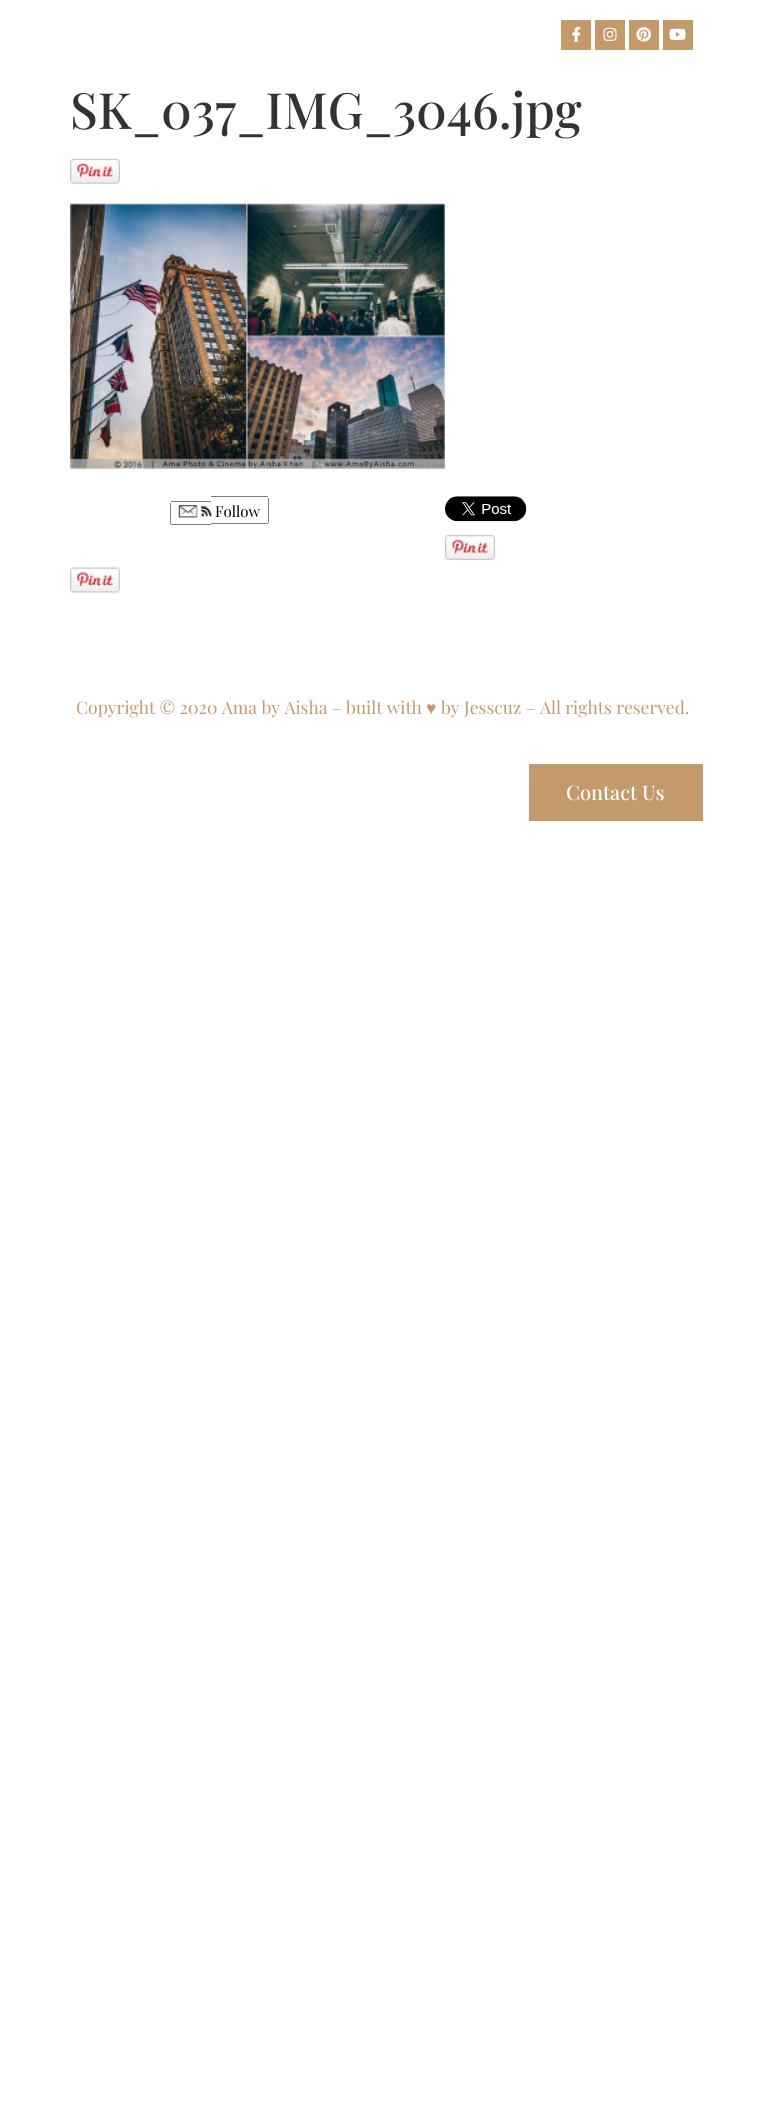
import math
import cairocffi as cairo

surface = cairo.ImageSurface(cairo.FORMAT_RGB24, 765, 2104)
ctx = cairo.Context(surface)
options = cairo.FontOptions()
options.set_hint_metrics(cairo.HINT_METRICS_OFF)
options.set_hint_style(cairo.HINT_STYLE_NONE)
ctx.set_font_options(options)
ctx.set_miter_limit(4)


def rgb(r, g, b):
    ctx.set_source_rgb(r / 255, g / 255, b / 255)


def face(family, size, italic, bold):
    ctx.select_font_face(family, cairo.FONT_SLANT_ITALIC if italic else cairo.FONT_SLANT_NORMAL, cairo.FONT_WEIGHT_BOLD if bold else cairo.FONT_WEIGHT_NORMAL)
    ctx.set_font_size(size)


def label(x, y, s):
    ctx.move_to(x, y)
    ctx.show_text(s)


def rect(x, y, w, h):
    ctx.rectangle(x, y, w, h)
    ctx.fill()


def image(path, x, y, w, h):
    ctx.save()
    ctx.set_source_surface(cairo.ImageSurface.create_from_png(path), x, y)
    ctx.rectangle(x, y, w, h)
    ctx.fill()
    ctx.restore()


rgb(255, 255, 255)
ctx.paint()
rgb(196, 154, 108)
rect(561, 20, 30, 30)
image('image0.png', 572, 26, 9, 16)
rect(595, 20, 30, 30)
image('image1.png', 603, 27, 14, 14)
rect(629, 20, 30, 30)
image('image2.png', 636, 27, 15, 15)
rect(663, 20, 30, 30)
image('image3.png', 669, 28, 17, 12)
face('Playfair Display Medium', 50, 0, 0)
rgb(51, 51, 51)
label(70, 129, 'SK_037_IMG_3046.jpg')
image('image4.png', 70, 158, 50, 26)
image('image5.png', 70, 203, 375, 266)
image('image6.png', 178, 505, 34, 13)
face('Playfair Display', 15, 0, 0)
rgb(0, 0, 0)
label(215, 517, 'Follow')
rgb(128, 128, 128)
rect(171, 501, 40, 1)
rect(171, 524, 40, 1)
rect(170, 503, 1, 21)
rect(211, 496, 57, 1)
rect(268, 498, 1, 25)
rect(211, 523, 57, 1)
image('image7.png', 445, 496, 82, 26)
image('image8.png', 445, 535, 50, 25)
image('image9.png', 70, 567, 50, 26)
face('Playfair Display', 17.5, 0, 0)
rgb(196, 154, 108)
label(76, 714, 'Copyright © 2020 Ama by Aisha – built with')
face('Liberation Sans', 17.5, 0, 0)
label(426, 714, '♥')
face('Playfair Display', 17.5, 0, 0)
label(441, 714, 'by Jesscuz – All rights reserved.')
rect(529, 764, 174, 57)
face('Playfair Display Medium', 20, 0, 0)
rgb(255, 255, 255)
label(566, 800, 'Contact Us')
surface.write_to_png('render.png')
